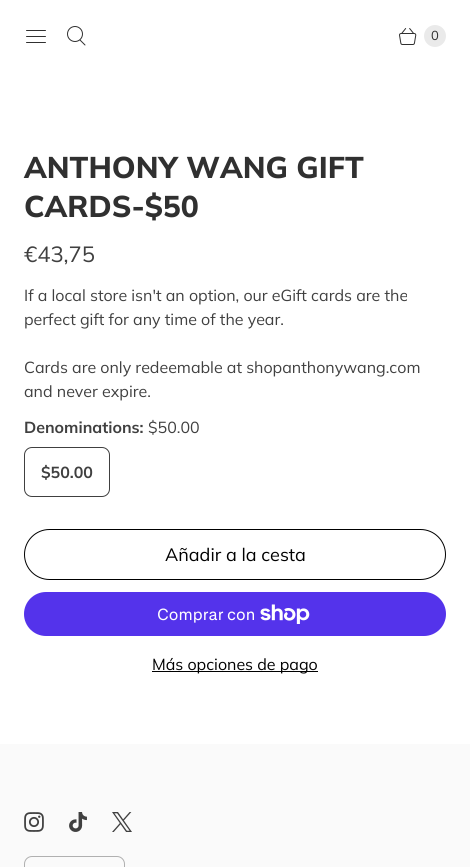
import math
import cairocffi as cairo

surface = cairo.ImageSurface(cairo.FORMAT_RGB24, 470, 867)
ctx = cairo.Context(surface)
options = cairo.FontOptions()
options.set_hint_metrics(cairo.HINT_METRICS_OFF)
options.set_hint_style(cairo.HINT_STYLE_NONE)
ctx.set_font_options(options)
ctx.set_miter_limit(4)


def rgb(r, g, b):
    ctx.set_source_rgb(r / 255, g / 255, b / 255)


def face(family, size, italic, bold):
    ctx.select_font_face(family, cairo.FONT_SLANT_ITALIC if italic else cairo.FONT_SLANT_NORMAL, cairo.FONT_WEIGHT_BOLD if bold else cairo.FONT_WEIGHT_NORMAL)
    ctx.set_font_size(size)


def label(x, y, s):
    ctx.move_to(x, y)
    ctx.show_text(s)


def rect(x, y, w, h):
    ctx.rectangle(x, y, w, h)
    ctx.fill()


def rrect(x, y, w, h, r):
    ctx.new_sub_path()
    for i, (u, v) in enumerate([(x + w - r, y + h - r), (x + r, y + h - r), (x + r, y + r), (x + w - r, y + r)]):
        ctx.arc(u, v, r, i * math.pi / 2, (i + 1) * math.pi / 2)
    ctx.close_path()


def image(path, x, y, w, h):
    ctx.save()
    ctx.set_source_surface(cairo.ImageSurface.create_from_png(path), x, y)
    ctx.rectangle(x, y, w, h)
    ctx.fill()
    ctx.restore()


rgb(255, 255, 255)
ctx.paint()
image('image0.png', 26, 30, 20, 13)
image('image1.png', 67, 26, 19, 20)
image('image2.png', 399, 28, 18, 17)
rgb(234, 234, 234)
ctx.arc(435, 36, 11, 0, 2 * math.pi)
ctx.fill()
face('Muli', 13, 0, 0)
rgb(48, 48, 48)
label(431, 40, '0')
face('Muli ExtraBold', 30, 0, 0)
label(24, 178, 'ANTHONY WANG GIFT')
label(24, 217, 'CARDS-$50')
face('Muli', 22, 0, 0)
rgb(64, 64, 64)
label(24, 262, '€43,75')
face('Muli', 16, 0, 0)
label(24, 301, 'If a local store isn\'t an option, our eGift cards are the')
label(24, 325, 'perfect gift for any time of the year.')
label(24, 373, 'Cards are only redeemable at shopanthonywang.com')
label(24, 397, 'and never expire.')
face('Muli', 16, 0, 1)
label(24, 433, 'Denominations:')
face('Muli', 16, 0, 0)
label(148, 433, '$50.00')
rrect(24.5, 447.5, 85, 49, 7.5)
ctx.set_line_width(1)
ctx.stroke()
face('Muli', 16, 0, 1)
label(41, 478, '$50.00')
rrect(24.5, 529.5, 421, 50, 25)
rgb(0, 0, 0)
ctx.stroke()
face('Muli', 18, 0, 0)
label(165, 561, 'Añadir a la cesta')
rgb(84, 51, 235)
rrect(24, 592, 422, 44, 22)
ctx.fill()
face('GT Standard', 16, 0, 0)
rgb(255, 255, 255)
label(157, 620, 'Comprar con')
image('image3.png', 260, 604, 50, 20)
rgb(0, 0, 0)
rect(152, 671, 166, 1)
face('Muli', 16, 0, 0)
label(152, 670, 'Más opciones de pago')
rgb(250, 250, 250)
rect(0, 744, 470, 123)
image('image4.png', 24, 812, 20, 20)
image('image5.png', 69, 812, 18, 20)
image('image6.png', 112, 812, 20, 20)
rrect(24.5, 856.5, 100, 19, 7.5)
rgb(176, 176, 176)
ctx.stroke()
surface.write_to_png('render.png')
